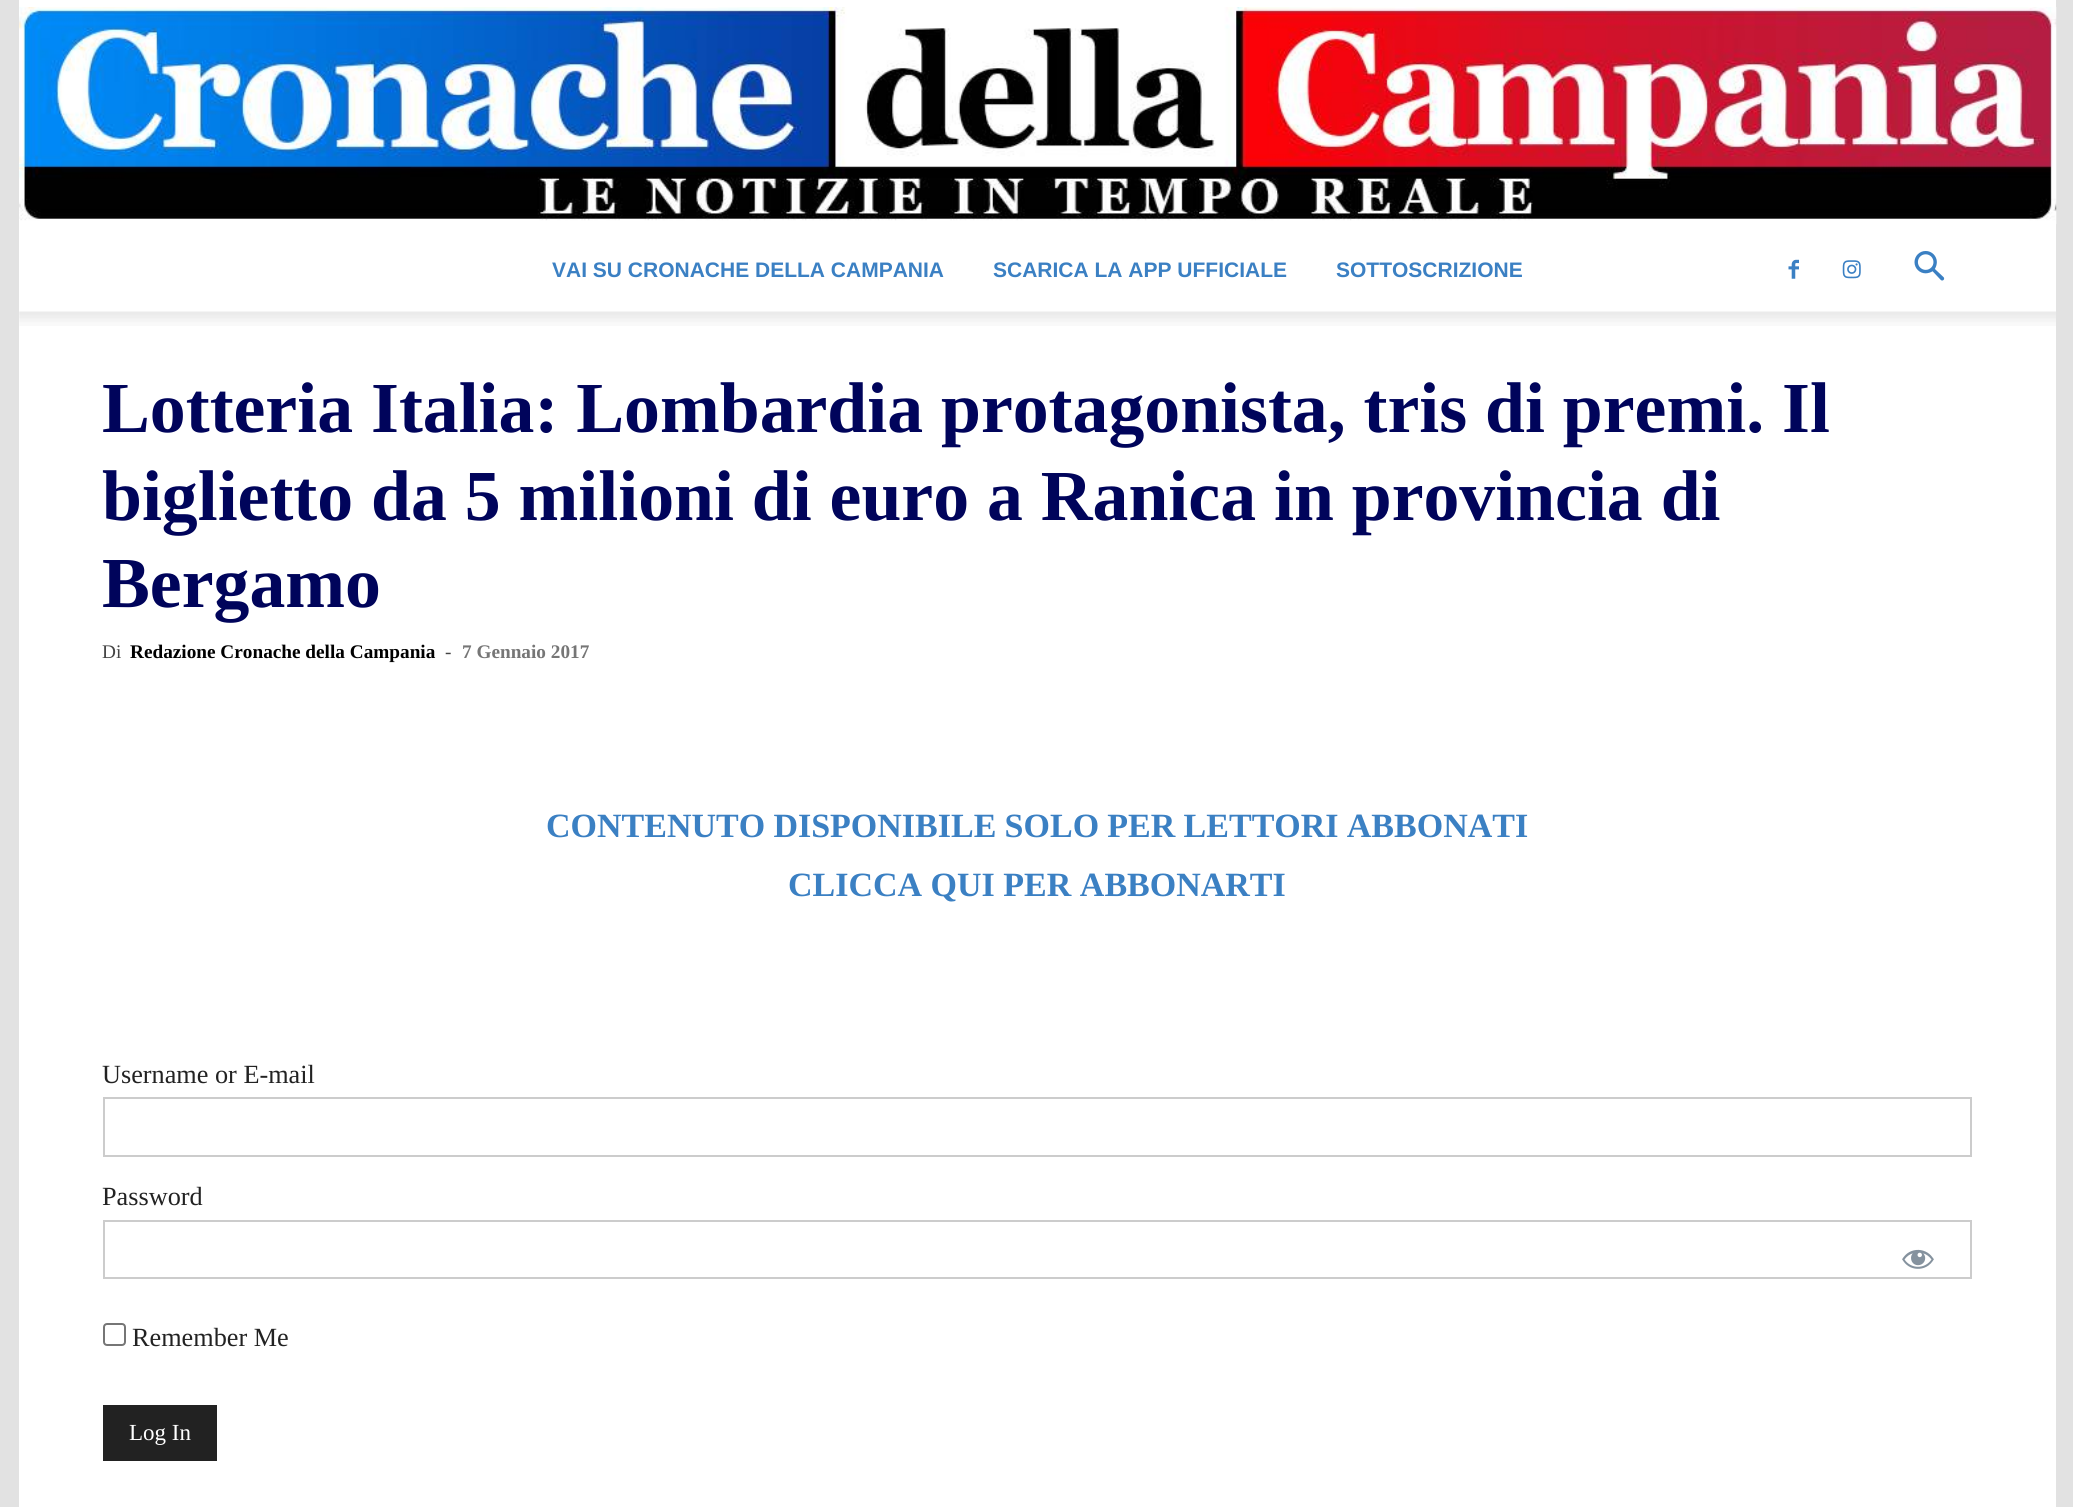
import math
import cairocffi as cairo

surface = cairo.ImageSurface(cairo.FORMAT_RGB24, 2073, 1507)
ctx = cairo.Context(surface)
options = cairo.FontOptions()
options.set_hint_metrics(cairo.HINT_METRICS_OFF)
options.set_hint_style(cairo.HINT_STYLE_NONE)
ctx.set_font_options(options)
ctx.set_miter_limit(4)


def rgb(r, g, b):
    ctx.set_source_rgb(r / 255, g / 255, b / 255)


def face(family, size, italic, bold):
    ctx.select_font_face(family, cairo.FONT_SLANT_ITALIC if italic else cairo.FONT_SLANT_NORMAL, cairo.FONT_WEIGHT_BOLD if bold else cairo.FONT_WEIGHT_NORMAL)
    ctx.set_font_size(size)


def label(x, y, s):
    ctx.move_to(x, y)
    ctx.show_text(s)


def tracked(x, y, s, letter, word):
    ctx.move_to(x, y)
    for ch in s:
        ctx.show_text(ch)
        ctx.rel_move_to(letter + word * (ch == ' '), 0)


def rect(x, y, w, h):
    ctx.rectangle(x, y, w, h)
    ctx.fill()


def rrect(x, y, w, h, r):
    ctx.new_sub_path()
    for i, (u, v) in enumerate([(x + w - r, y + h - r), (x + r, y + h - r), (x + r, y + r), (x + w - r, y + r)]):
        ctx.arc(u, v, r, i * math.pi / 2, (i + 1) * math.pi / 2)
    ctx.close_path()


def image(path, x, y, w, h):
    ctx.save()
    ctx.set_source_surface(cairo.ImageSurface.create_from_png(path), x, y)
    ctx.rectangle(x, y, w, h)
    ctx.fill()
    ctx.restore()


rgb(226, 226, 226)
ctx.paint()
rgb(255, 255, 255)
rect(19, 0, 2037, 312)
image('image0.png', 19, 7, 2038, 217)
face('Liberation Sans', 21, 0, 1)
rgb(59, 128, 195)
label(552, 277, 'VAI SU CRONACHE DELLA CAMPANIA')
label(993, 277, 'SCARICA LA APP UFFICIALE')
label(1336, 277, 'SOTTOSCRIZIONE')
image('image1.png', 1788, 259, 11, 20)
image('image2.png', 1842, 260, 19, 19)
image('image3.png', 1914, 251, 31, 30)
rgb(255, 255, 255)
rect(19, 312, 2037, 1195)
image('image4.png', 19, 311, 2037, 15)
face('Liberation Serif', 71.75, 0, 1)
rgb(0, 4, 91)
label(102, 432, 'Lotteria Italia: Lombardia protagonista, tris di premi. Il')
label(102, 520, 'biglietto da 5 milioni di euro a Ranica in provincia di')
label(102, 607, 'Bergamo')
face('Liberation Serif', 19.25, 0, 0)
rgb(68, 68, 68)
label(102, 658, 'Di')
face('Liberation Serif', 19.25, 0, 1)
rgb(0, 0, 0)
label(130, 658, 'Redazione Cronache della Campania')
face('Liberation Serif', 19.25, 0, 0)
rgb(68, 68, 68)
label(445, 658, '-')
face('Liberation Serif', 19.25, 0, 1)
rgb(118, 118, 118)
label(462, 658, '7 Gennaio 2017')
face('Liberation Serif', 34, 0, 1)
rgb(59, 128, 195)
tracked(546, 837, 'CONTENUTO DISPONIBILE SOLO PER LETTORI ABBONATI', 0, -0.25)
label(788, 896, 'CLICCA QUI PER ABBONARTI')
face('Liberation Serif', 26.25, 0, 0)
rgb(34, 34, 34)
label(102, 1083, 'Username or E-mail')
ctx.rectangle(104, 1098, 1867, 58)
rgb(204, 204, 204)
ctx.stroke()
rgb(34, 34, 34)
label(102, 1205, 'Password')
ctx.rectangle(104, 1221, 1867, 57)
rgb(204, 204, 204)
ctx.stroke()
image('image5.png', 1902, 1249, 32, 20)
rrect(104, 1324, 21, 21, 3)
rgb(118, 118, 118)
ctx.stroke()
rgb(34, 34, 34)
label(132, 1346, 'Remember Me')
rect(103, 1405, 114, 56)
face('Liberation Serif', 23, 0, 0)
rgb(255, 255, 255)
label(129, 1440, 'Log In')
surface.write_to_png('render.png')
